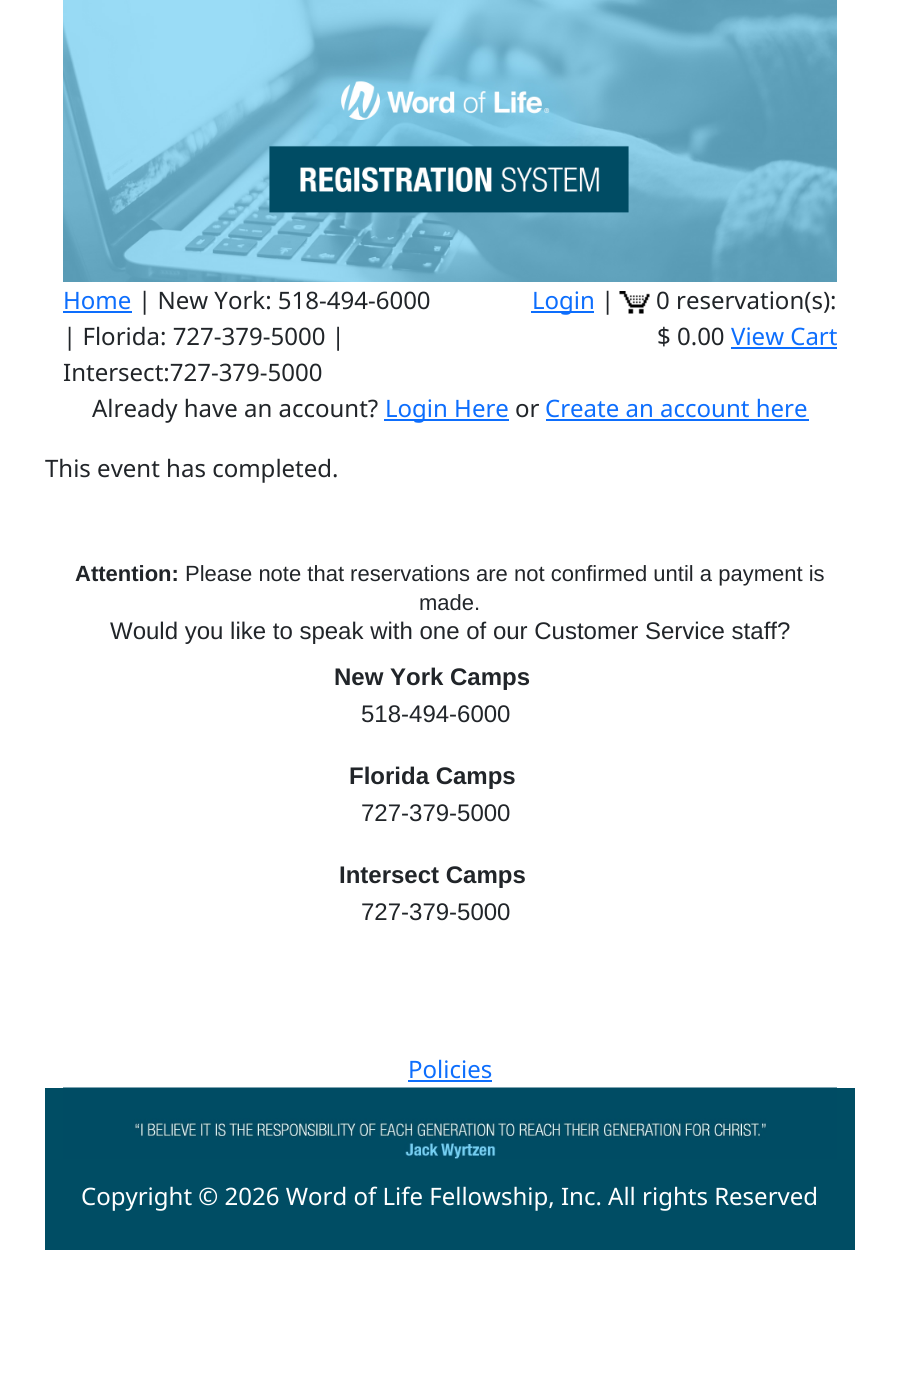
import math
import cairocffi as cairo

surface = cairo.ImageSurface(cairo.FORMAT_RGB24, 899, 1393)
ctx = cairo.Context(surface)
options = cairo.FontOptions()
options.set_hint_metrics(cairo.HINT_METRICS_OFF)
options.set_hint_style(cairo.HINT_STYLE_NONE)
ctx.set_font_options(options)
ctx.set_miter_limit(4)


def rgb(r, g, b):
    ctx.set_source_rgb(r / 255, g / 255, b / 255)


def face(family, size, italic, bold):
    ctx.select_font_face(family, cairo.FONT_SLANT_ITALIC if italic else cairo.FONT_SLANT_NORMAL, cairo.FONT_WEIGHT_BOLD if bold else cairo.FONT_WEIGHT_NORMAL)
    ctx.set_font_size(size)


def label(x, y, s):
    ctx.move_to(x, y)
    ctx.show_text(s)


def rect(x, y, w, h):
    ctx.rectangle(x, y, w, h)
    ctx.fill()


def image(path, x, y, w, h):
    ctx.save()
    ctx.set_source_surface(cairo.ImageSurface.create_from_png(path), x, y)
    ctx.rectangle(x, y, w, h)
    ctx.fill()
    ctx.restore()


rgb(255, 255, 255)
ctx.paint()
image('image0.png', 63, 0, 774, 282)
face('Noto Sans', 24, 0, 0)
rgb(13, 110, 253)
label(63, 309, 'Home')
rect(63, 311, 69, 2)
rgb(33, 37, 41)
label(138, 309, '| New York: 518-494-6000')
label(63, 345, '| Florida: 727-379-5000 |')
label(63, 381, 'Intersect:727-379-5000')
rgb(13, 110, 253)
rect(531, 311, 63, 2)
label(532, 309, 'Login')
rgb(33, 37, 41)
label(601, 309, '|')
image('image1.png', 619, 291, 31, 23)
label(656, 309, '0 reservation(s):')
label(657, 345, '$ 0.00')
rgb(13, 110, 253)
label(731, 345, 'View Cart')
rect(731, 347, 106, 2)
rgb(33, 37, 41)
label(92, 417, 'Already have an account?')
rgb(13, 110, 253)
rect(384, 419, 125, 2)
label(385, 417, 'Login Here')
rgb(33, 37, 41)
label(515, 417, 'or')
rgb(13, 110, 253)
label(545, 417, 'Create an account here')
rect(546, 419, 263, 2)
rgb(33, 37, 41)
label(45, 477, 'This event has completed.')
face('Liberation Sans', 22, 0, 1)
label(75, 581, 'Attention:')
face('Liberation Sans', 22, 0, 0)
label(185, 581, 'Please note that reservations are not confirmed until a payment is')
label(419, 610, 'made.')
face('Liberation Sans', 24, 0, 0)
label(110, 639, 'Would you like to speak with one of our Customer Service staff?')
face('Liberation Sans', 24, 0, 1)
label(334, 685, 'New York Camps')
face('Liberation Sans', 24, 0, 0)
label(361, 722, '518-494-6000')
face('Liberation Sans', 24, 0, 1)
label(349, 784, 'Florida Camps')
face('Liberation Sans', 24, 0, 0)
label(361, 821, '727-379-5000')
face('Liberation Sans', 24, 0, 1)
label(339, 883, 'Intersect Camps')
face('Liberation Sans', 24, 0, 0)
label(361, 920, '727-379-5000')
face('Noto Sans', 24, 0, 0)
rgb(13, 110, 253)
label(408, 1078, 'Policies')
rect(408, 1080, 84, 2)
rgb(0, 77, 100)
rect(45, 1088, 810, 162)
image('image2.png', 63, 1087, 774, 72)
rgb(255, 255, 255)
label(81, 1205, 'Copyright © 2026 Word of Life Fellowship, Inc. All rights Reserved')
surface.write_to_png('render.png')
